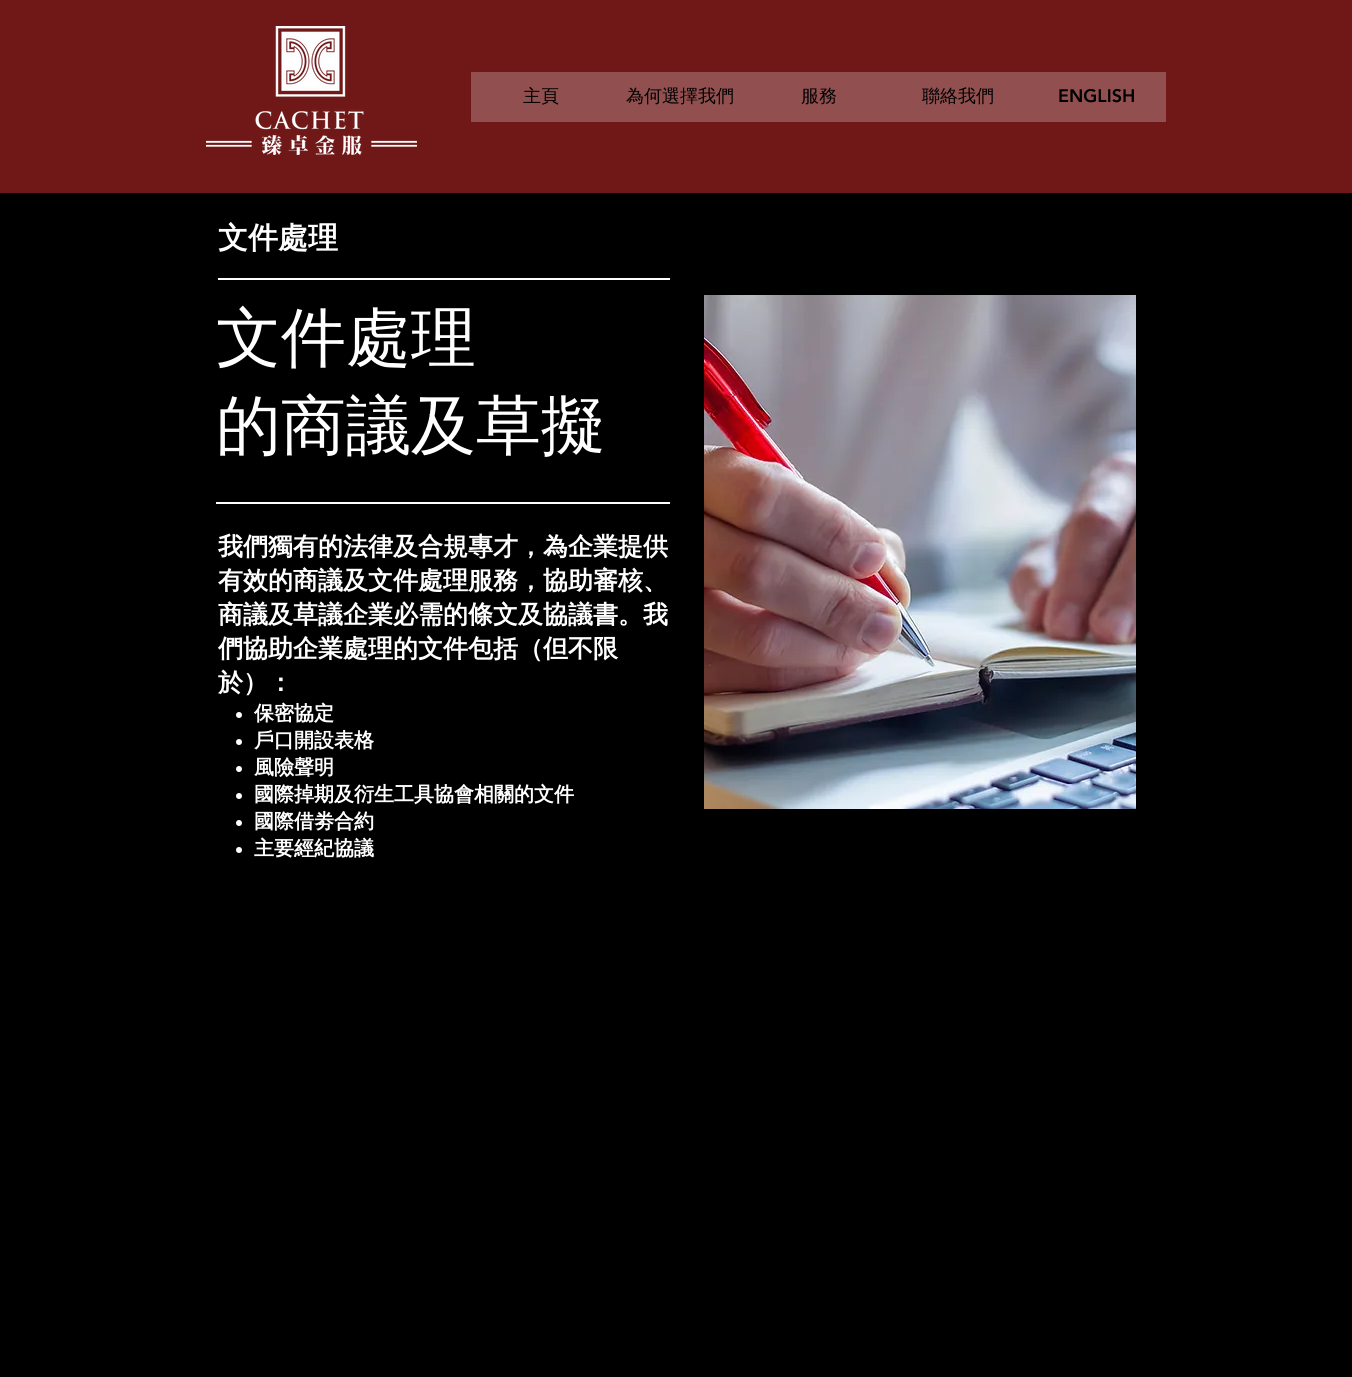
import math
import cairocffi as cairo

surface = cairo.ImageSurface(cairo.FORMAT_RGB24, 1352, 1377)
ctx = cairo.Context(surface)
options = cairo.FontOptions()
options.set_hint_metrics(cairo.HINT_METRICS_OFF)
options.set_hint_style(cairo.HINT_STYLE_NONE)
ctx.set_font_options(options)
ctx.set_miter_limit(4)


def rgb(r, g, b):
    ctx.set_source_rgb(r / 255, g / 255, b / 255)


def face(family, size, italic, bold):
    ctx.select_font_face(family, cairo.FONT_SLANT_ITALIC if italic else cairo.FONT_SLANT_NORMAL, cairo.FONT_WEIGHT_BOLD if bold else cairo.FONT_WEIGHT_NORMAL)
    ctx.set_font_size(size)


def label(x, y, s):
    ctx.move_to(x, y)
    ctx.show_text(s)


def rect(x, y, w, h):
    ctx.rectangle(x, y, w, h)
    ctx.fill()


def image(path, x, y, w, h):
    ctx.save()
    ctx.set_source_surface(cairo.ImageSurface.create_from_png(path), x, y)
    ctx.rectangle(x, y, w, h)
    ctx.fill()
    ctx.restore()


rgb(0, 0, 0)
ctx.paint()
rgb(112, 24, 24)
rect(0, 0, 1352, 193)
image('image0.png', 206, 26, 211, 129)
rgb(146, 79, 79)
rect(471, 72, 695, 50)
face('WenQuanYi Zen Hei Medium', 18, 0, 0)
rgb(0, 0, 0)
label(523, 102, '主頁')
label(626, 102, '為何選擇我們')
label(801, 102, '服務')
label(922, 102, '聯絡我們')
face('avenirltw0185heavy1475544 Black', 18, 0, 0)
label(1058, 102, 'ENGLISH')
face('WenQuanYi Zen Hei', 30, 0, 1)
rgb(255, 255, 255)
label(218, 248, '文件處理')
rect(218, 278, 452, 2)
face('WenQuanYi Zen Hei Medium', 65, 0, 0)
label(216, 360, '文件處理')
label(216, 448, '的商議及草擬')
image('image1.png', 704, 295, 432, 514)
rect(216, 502, 454, 2)
face('WenQuanYi Zen Hei', 25, 0, 1)
label(218, 555, '我們獨有的法律及合規專才，為企業提供')
label(218, 589, '有效的商議及文件處理服務，協助審核、')
label(218, 623, '商議及草議企業必需的條文及協議書。我')
label(218, 657, '們協助企業處理的文件包括（但不限')
label(218, 691, '於）：')
ctx.new_path()
ctx.arc(239, 715, 3, 0, 2 * math.pi)
ctx.fill()
face('WenQuanYi Zen Hei', 20, 0, 1)
label(254, 720, '保密協定')
ctx.new_path()
ctx.arc(239, 742, 3, 0, 2 * math.pi)
ctx.fill()
label(254, 747, '戶口開設表格')
ctx.new_path()
ctx.arc(239, 769, 3, 0, 2 * math.pi)
ctx.fill()
label(254, 774, '風險聲明')
ctx.new_path()
ctx.arc(239, 796, 3, 0, 2 * math.pi)
ctx.fill()
label(254, 801, '國際掉期及衍生工具協會相關的文件')
ctx.new_path()
ctx.arc(239, 823, 3, 0, 2 * math.pi)
ctx.fill()
label(254, 828, '國際借劵合約')
ctx.new_path()
ctx.arc(239, 850, 3, 0, 2 * math.pi)
ctx.fill()
label(254, 855, '主要經紀協議')
surface.write_to_png('render.png')
